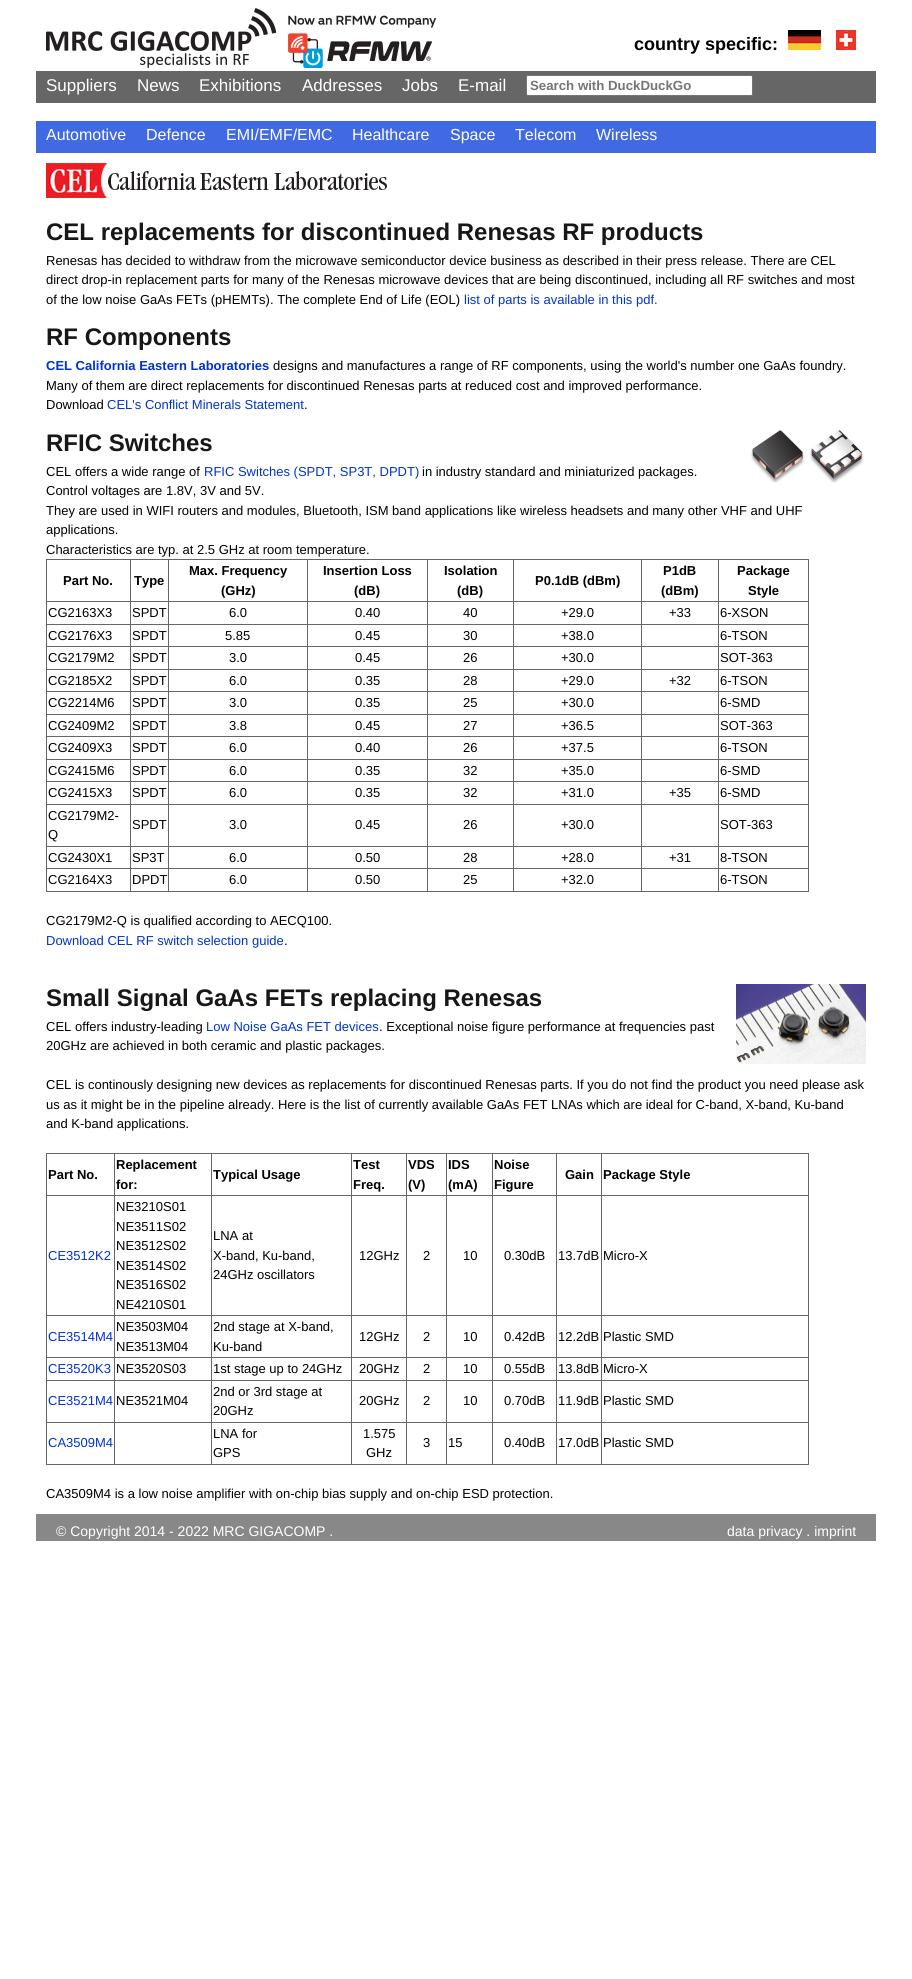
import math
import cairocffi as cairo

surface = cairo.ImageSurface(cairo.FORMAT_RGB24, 912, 1979)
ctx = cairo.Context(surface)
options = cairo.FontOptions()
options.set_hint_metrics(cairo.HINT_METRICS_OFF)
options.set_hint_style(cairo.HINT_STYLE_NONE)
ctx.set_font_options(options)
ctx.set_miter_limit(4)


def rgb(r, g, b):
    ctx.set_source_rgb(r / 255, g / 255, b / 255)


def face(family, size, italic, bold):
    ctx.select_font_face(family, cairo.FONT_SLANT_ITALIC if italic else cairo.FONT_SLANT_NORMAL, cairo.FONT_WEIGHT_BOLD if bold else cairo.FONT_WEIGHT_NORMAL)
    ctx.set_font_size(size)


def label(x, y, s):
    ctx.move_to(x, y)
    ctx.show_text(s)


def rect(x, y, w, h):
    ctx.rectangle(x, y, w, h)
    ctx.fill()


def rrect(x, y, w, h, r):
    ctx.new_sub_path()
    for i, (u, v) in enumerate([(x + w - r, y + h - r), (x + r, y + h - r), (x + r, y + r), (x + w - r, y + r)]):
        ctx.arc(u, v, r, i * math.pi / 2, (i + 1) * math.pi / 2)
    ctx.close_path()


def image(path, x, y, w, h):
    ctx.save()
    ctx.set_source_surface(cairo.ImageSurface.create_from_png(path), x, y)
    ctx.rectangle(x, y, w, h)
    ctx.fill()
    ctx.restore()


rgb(255, 255, 255)
ctx.paint()
image('image0.png', 46, 8, 391, 60)
face('Liberation Sans', 18, 0, 1)
rgb(0, 0, 0)
label(634, 50, 'country specific:')
image('image1.png', 788, 30, 33, 20)
image('image2.png', 836, 30, 20, 20)
rgb(102, 102, 102)
rect(36, 71, 840, 32)
face('Liberation Sans', 17, 0, 0)
rgb(255, 255, 255)
label(46, 91, 'Suppliers')
label(137, 91, 'News')
label(199, 91, 'Exhibitions')
label(302, 91, 'Addresses')
label(402, 91, 'Jobs')
label(458, 91, 'E-mail')
rrect(526.5, 75.5, 226, 20, 1.5)
ctx.fill_preserve()
rgb(118, 118, 118)
ctx.set_line_width(1)
ctx.stroke()
face('Liberation Sans', 13.25, 0, 1)
rgb(117, 117, 117)
label(530, 90, 'Search with DuckDuckGo')
rgb(65, 105, 225)
rect(36, 121, 840, 32)
face('Liberation Sans', 16, 0, 0)
rgb(255, 255, 255)
label(46, 140, 'Automotive')
label(146, 140, 'Defence')
label(226, 140, 'EMI/EMF/EMC')
label(352, 140, 'Healthcare')
label(450, 140, 'Space')
label(515, 140, 'Telecom')
label(596, 140, 'Wireless')
image('image3.png', 46, 163, 341, 35)
face('Liberation Sans', 24, 0, 1)
rgb(23, 23, 23)
label(46, 240, 'CEL replacements for discontinued Renesas RF products')
face('Liberation Sans', 13, 0, 0)
rgb(0, 0, 0)
label(46, 265, 'Renesas has decided to withdraw from the microwave semiconductor device business as described in their press release. There are CEL')
label(46, 284, 'direct drop-in replacement parts for many of the Renesas microwave devices that are being discontinued, including all RF switches and most')
label(46, 304, 'of the low noise GaAs FETs (pHEMTs). The complete End of Life (EOL)')
rgb(0, 51, 204)
label(464, 304, 'list of parts is available in this pdf.')
face('Liberation Sans', 24, 0, 1)
rgb(23, 23, 23)
label(46, 345, 'RF Components')
face('Liberation Sans', 13, 0, 1)
rgb(0, 51, 204)
label(46, 370, 'CEL California Eastern Laboratories')
face('Liberation Sans', 13, 0, 0)
rgb(0, 0, 0)
label(273, 370, 'designs and manufactures a range of RF components, using the world\'s number one GaAs foundry.')
label(46, 390, 'Many of them are direct replacements for discontinued Renesas parts at reduced cost and improved performance.')
label(46, 409, 'Download')
rgb(0, 51, 204)
label(107, 409, 'CEL\'s Conflict Minerals Statement')
rgb(0, 0, 0)
label(304, 409, '.')
face('Liberation Sans', 24, 0, 1)
rgb(23, 23, 23)
label(46, 451, 'RFIC Switches')
image('image4.png', 750, 430, 55, 53)
image('image5.png', 809, 430, 55, 53)
face('Liberation Sans', 13, 0, 0)
rgb(0, 0, 0)
label(46, 476, 'CEL offers a wide range of')
rgb(0, 51, 204)
label(204, 476, 'RFIC Switches (SPDT, SP3T, DPDT)')
rgb(0, 0, 0)
label(422, 476, 'in industry standard and miniaturized packages.')
label(46, 495, 'Control voltages are 1.8V, 3V and 5V.')
label(46, 515, 'They are used in WIFI routers and modules, Bluetooth, ISM band applications like wireless headsets and many other VHF and UHF')
label(46, 534, 'applications.')
label(46, 554, 'Characteristics are typ. at 2.5 GHz at room temperature.')
rgb(102, 102, 102)
rect(46, 559, 763, 1)
rect(808, 559, 1, 333)
rect(46, 891, 763, 1)
rect(46, 559, 1, 333)
face('Liberation Sans', 13, 0, 1)
rgb(0, 0, 0)
label(63, 585, 'Part No.')
rgb(102, 102, 102)
rect(718, 601, 91, 1)
rect(718, 624, 91, 1)
rect(718, 646, 91, 1)
rect(718, 669, 91, 1)
rect(718, 691, 91, 1)
rect(718, 714, 91, 1)
rect(718, 736, 91, 1)
rect(718, 759, 91, 1)
rect(718, 781, 91, 1)
rect(718, 804, 91, 1)
rect(718, 846, 91, 1)
rect(718, 868, 91, 1)
rect(718, 868, 1, 24)
rect(641, 868, 78, 1)
rect(718, 846, 1, 23)
rect(641, 846, 78, 1)
rect(718, 804, 1, 43)
rect(641, 804, 78, 1)
rect(718, 781, 1, 24)
rect(641, 781, 78, 1)
rect(718, 759, 1, 23)
rect(641, 759, 78, 1)
rect(718, 736, 1, 24)
rect(641, 736, 78, 1)
rect(718, 714, 1, 23)
rect(641, 714, 78, 1)
rect(718, 691, 1, 24)
rect(641, 691, 78, 1)
rect(718, 669, 1, 23)
rect(641, 669, 78, 1)
rect(718, 646, 1, 24)
rect(641, 646, 78, 1)
rect(718, 624, 1, 23)
rect(641, 624, 78, 1)
rect(718, 601, 1, 24)
rect(641, 601, 78, 1)
rect(641, 868, 1, 24)
rect(513, 868, 129, 1)
rect(641, 846, 1, 23)
rect(513, 846, 129, 1)
rect(641, 804, 1, 43)
rect(513, 804, 129, 1)
rect(641, 781, 1, 24)
rect(513, 781, 129, 1)
rect(641, 759, 1, 23)
rect(513, 759, 129, 1)
rect(641, 736, 1, 24)
rect(513, 736, 129, 1)
rect(641, 714, 1, 23)
rect(513, 714, 129, 1)
rect(641, 691, 1, 24)
rect(513, 691, 129, 1)
rect(641, 669, 1, 23)
rect(513, 669, 129, 1)
rect(641, 646, 1, 24)
rect(513, 646, 129, 1)
rect(641, 624, 1, 23)
rect(513, 624, 129, 1)
rect(641, 601, 1, 24)
rect(513, 601, 129, 1)
rect(513, 868, 1, 24)
rect(427, 868, 87, 1)
rect(513, 846, 1, 23)
rect(427, 846, 87, 1)
rect(513, 804, 1, 43)
rect(427, 804, 87, 1)
rect(513, 781, 1, 24)
rect(427, 781, 87, 1)
rect(513, 759, 1, 23)
rect(427, 759, 87, 1)
rect(513, 736, 1, 24)
rect(427, 736, 87, 1)
rect(513, 714, 1, 23)
rect(427, 714, 87, 1)
rect(513, 691, 1, 24)
rect(427, 691, 87, 1)
rect(513, 669, 1, 23)
rect(427, 669, 87, 1)
rect(513, 646, 1, 24)
rect(427, 646, 87, 1)
rect(513, 624, 1, 23)
rect(427, 624, 87, 1)
rect(513, 601, 1, 24)
rect(427, 601, 87, 1)
rect(427, 868, 1, 24)
rect(307, 868, 121, 1)
rect(427, 846, 1, 23)
rect(307, 846, 121, 1)
rect(427, 804, 1, 43)
rect(307, 804, 121, 1)
rect(427, 781, 1, 24)
rect(307, 781, 121, 1)
rect(427, 759, 1, 23)
rect(307, 759, 121, 1)
rect(427, 736, 1, 24)
rect(307, 736, 121, 1)
rect(427, 714, 1, 23)
rect(307, 714, 121, 1)
rect(427, 691, 1, 24)
rect(307, 691, 121, 1)
rect(427, 669, 1, 23)
rect(307, 669, 121, 1)
rect(427, 646, 1, 24)
rect(307, 646, 121, 1)
rect(427, 624, 1, 23)
rect(307, 624, 121, 1)
rect(427, 601, 1, 24)
rect(307, 601, 121, 1)
rect(307, 868, 1, 24)
rect(168, 868, 140, 1)
rect(307, 846, 1, 23)
rect(168, 846, 140, 1)
rect(307, 804, 1, 43)
rect(168, 804, 140, 1)
rect(307, 781, 1, 24)
rect(168, 781, 140, 1)
rect(307, 759, 1, 23)
rect(168, 759, 140, 1)
rect(307, 736, 1, 24)
rect(168, 736, 140, 1)
rect(307, 714, 1, 23)
rect(168, 714, 140, 1)
rect(307, 691, 1, 24)
rect(168, 691, 140, 1)
rect(307, 669, 1, 23)
rect(168, 669, 140, 1)
rect(307, 646, 1, 24)
rect(168, 646, 140, 1)
rect(307, 624, 1, 23)
rect(168, 624, 140, 1)
rect(307, 601, 1, 24)
rect(168, 601, 140, 1)
rect(168, 868, 1, 24)
rect(130, 868, 39, 1)
rect(168, 846, 1, 23)
rect(130, 846, 39, 1)
rect(168, 804, 1, 43)
rect(130, 804, 39, 1)
rect(168, 781, 1, 24)
rect(130, 781, 39, 1)
rect(168, 759, 1, 23)
rect(130, 759, 39, 1)
rect(168, 736, 1, 24)
rect(130, 736, 39, 1)
rect(168, 714, 1, 23)
rect(130, 714, 39, 1)
rect(168, 691, 1, 24)
rect(130, 691, 39, 1)
rect(168, 669, 1, 23)
rect(130, 669, 39, 1)
rect(168, 646, 1, 24)
rect(130, 646, 39, 1)
rect(168, 624, 1, 23)
rect(130, 624, 39, 1)
rect(168, 601, 1, 24)
rect(130, 601, 39, 1)
rect(130, 868, 1, 24)
rect(46, 868, 85, 1)
rect(130, 846, 1, 23)
rect(46, 846, 85, 1)
rect(130, 804, 1, 43)
rect(46, 804, 85, 1)
rect(130, 781, 1, 24)
rect(46, 781, 85, 1)
rect(130, 759, 1, 23)
rect(46, 759, 85, 1)
rect(130, 736, 1, 24)
rect(46, 736, 85, 1)
rect(130, 714, 1, 23)
rect(46, 714, 85, 1)
rect(130, 691, 1, 24)
rect(46, 691, 85, 1)
rect(130, 669, 1, 23)
rect(46, 669, 85, 1)
rect(130, 646, 1, 24)
rect(46, 646, 85, 1)
rect(130, 624, 1, 23)
rect(46, 624, 85, 1)
rect(130, 601, 1, 24)
rect(46, 601, 85, 1)
rect(130, 559, 1, 43)
rgb(0, 0, 0)
label(134, 585, 'Type')
rgb(102, 102, 102)
rect(168, 559, 1, 43)
rgb(0, 0, 0)
label(189, 575, 'Max. Frequency')
label(221, 595, '(GHz)')
rgb(102, 102, 102)
rect(307, 559, 1, 43)
rgb(0, 0, 0)
label(323, 575, 'Insertion Loss')
label(354, 595, '(dB)')
rgb(102, 102, 102)
rect(427, 559, 1, 43)
rgb(0, 0, 0)
label(444, 575, 'Isolation')
label(457, 595, '(dB)')
rgb(102, 102, 102)
rect(513, 559, 1, 43)
rgb(0, 0, 0)
label(535, 585, 'P0.1dB (dBm)')
rgb(102, 102, 102)
rect(641, 559, 1, 43)
rgb(0, 0, 0)
label(663, 575, 'P1dB')
label(661, 595, '(dBm)')
rgb(102, 102, 102)
rect(718, 559, 1, 43)
rgb(0, 0, 0)
label(737, 575, 'Package')
label(748, 595, 'Style')
face('Liberation Sans', 13, 0, 0)
label(48, 617, 'CG2163X3')
label(132, 617, 'SPDT')
label(229, 617, '6.0')
label(355, 617, '0.40')
label(463, 617, '40')
label(561, 617, '+29.0')
label(669, 617, '+33')
label(720, 617, '6-XSON')
label(48, 640, 'CG2176X3')
label(132, 640, 'SPDT')
label(225, 640, '5.85')
label(355, 640, '0.45')
label(463, 640, '30')
label(561, 640, '+38.0')
label(720, 640, '6-TSON')
label(48, 662, 'CG2179M2')
label(132, 662, 'SPDT')
label(229, 662, '3.0')
label(355, 662, '0.45')
label(463, 662, '26')
label(561, 662, '+30.0')
label(720, 662, 'SOT-363')
label(48, 685, 'CG2185X2')
label(132, 685, 'SPDT')
label(229, 685, '6.0')
label(355, 685, '0.35')
label(463, 685, '28')
label(561, 685, '+29.0')
label(669, 685, '+32')
label(720, 685, '6-TSON')
label(48, 707, 'CG2214M6')
label(132, 707, 'SPDT')
label(229, 707, '3.0')
label(355, 707, '0.35')
label(463, 707, '25')
label(561, 707, '+30.0')
label(720, 707, '6-SMD')
label(48, 730, 'CG2409M2')
label(132, 730, 'SPDT')
label(229, 730, '3.8')
label(355, 730, '0.45')
label(463, 730, '27')
label(561, 730, '+36.5')
label(720, 730, 'SOT-363')
label(48, 752, 'CG2409X3')
label(132, 752, 'SPDT')
label(229, 752, '6.0')
label(355, 752, '0.40')
label(463, 752, '26')
label(561, 752, '+37.5')
label(720, 752, '6-TSON')
label(48, 775, 'CG2415M6')
label(132, 775, 'SPDT')
label(229, 775, '6.0')
label(355, 775, '0.35')
label(463, 775, '32')
label(561, 775, '+35.0')
label(720, 775, '6-SMD')
label(48, 797, 'CG2415X3')
label(132, 797, 'SPDT')
label(229, 797, '6.0')
label(355, 797, '0.35')
label(463, 797, '32')
label(561, 797, '+31.0')
label(669, 797, '+35')
label(720, 797, '6-SMD')
label(48, 820, 'CG2179M2-')
label(48, 839, 'Q')
label(132, 829, 'SPDT')
label(229, 829, '3.0')
label(355, 829, '0.45')
label(463, 829, '26')
label(561, 829, '+30.0')
label(720, 829, 'SOT-363')
label(48, 862, 'CG2430X1')
label(132, 862, 'SP3T')
label(229, 862, '6.0')
label(355, 862, '0.50')
label(463, 862, '28')
label(561, 862, '+28.0')
label(669, 862, '+31')
label(720, 862, '8-TSON')
label(48, 884, 'CG2164X3')
label(132, 884, 'DPDT')
label(229, 884, '6.0')
label(355, 884, '0.50')
label(463, 884, '25')
label(561, 884, '+32.0')
label(720, 884, '6-TSON')
label(46, 925, 'CG2179M2-Q is qualified according to AECQ100.')
rgb(0, 51, 204)
label(46, 945, 'Download CEL RF switch selection guide')
rgb(0, 0, 0)
label(284, 945, '.')
face('Liberation Sans', 24, 0, 1)
rgb(23, 23, 23)
label(46, 1006, 'Small Signal GaAs FETs replacing Renesas')
image('image6.png', 736, 984, 130, 80)
face('Liberation Sans', 13, 0, 0)
rgb(0, 0, 0)
label(46, 1031, 'CEL offers industry-leading')
rgb(0, 51, 204)
label(206, 1031, 'Low Noise GaAs FET devices')
rgb(0, 0, 0)
label(379, 1031, '. Exceptional noise figure performance at frequencies past')
label(46, 1050, '20GHz are achieved in both ceramic and plastic packages.')
label(46, 1089, 'CEL is continously designing new devices as replacements for discontinued Renesas parts. If you do not find the product you need please ask')
label(46, 1109, 'us as it might be in the pipeline already. Here is the list of currently available GaAs FET LNAs which are ideal for C-band, X-band, Ku-band')
label(46, 1128, 'and K-band applications.')
rgb(102, 102, 102)
rect(46, 1153, 763, 1)
rect(808, 1153, 1, 312)
rect(46, 1464, 763, 1)
rect(46, 1153, 1, 312)
face('Liberation Sans', 13, 0, 1)
rgb(0, 0, 0)
label(48, 1179, 'Part No.')
rgb(102, 102, 102)
rect(601, 1195, 208, 1)
rect(601, 1315, 208, 1)
rect(601, 1357, 208, 1)
rect(601, 1380, 208, 1)
rect(601, 1422, 208, 1)
rect(601, 1422, 1, 43)
rect(556, 1422, 46, 1)
rect(601, 1380, 1, 43)
rect(556, 1380, 46, 1)
rect(601, 1357, 1, 24)
rect(556, 1357, 46, 1)
rect(601, 1315, 1, 43)
rect(556, 1315, 46, 1)
rect(601, 1195, 1, 121)
rect(556, 1195, 46, 1)
rect(556, 1422, 1, 43)
rect(492, 1422, 65, 1)
rect(556, 1380, 1, 43)
rect(492, 1380, 65, 1)
rect(556, 1357, 1, 24)
rect(492, 1357, 65, 1)
rect(556, 1315, 1, 43)
rect(492, 1315, 65, 1)
rect(556, 1195, 1, 121)
rect(492, 1195, 65, 1)
rect(492, 1422, 1, 43)
rect(446, 1422, 47, 1)
rect(492, 1380, 1, 43)
rect(446, 1380, 47, 1)
rect(492, 1357, 1, 24)
rect(446, 1357, 47, 1)
rect(492, 1315, 1, 43)
rect(446, 1315, 47, 1)
rect(492, 1195, 1, 121)
rect(446, 1195, 47, 1)
rect(446, 1422, 1, 43)
rect(406, 1422, 41, 1)
rect(446, 1380, 1, 43)
rect(406, 1380, 41, 1)
rect(446, 1357, 1, 24)
rect(406, 1357, 41, 1)
rect(446, 1315, 1, 43)
rect(406, 1315, 41, 1)
rect(446, 1195, 1, 121)
rect(406, 1195, 41, 1)
rect(406, 1422, 1, 43)
rect(351, 1422, 56, 1)
rect(406, 1380, 1, 43)
rect(351, 1380, 56, 1)
rect(406, 1357, 1, 24)
rect(351, 1357, 56, 1)
rect(406, 1315, 1, 43)
rect(351, 1315, 56, 1)
rect(406, 1195, 1, 121)
rect(351, 1195, 56, 1)
rect(351, 1422, 1, 43)
rect(211, 1422, 141, 1)
rect(351, 1380, 1, 43)
rect(211, 1380, 141, 1)
rect(351, 1357, 1, 24)
rect(211, 1357, 141, 1)
rect(351, 1315, 1, 43)
rect(211, 1315, 141, 1)
rect(351, 1195, 1, 121)
rect(211, 1195, 141, 1)
rect(211, 1422, 1, 43)
rect(114, 1422, 98, 1)
rect(211, 1380, 1, 43)
rect(114, 1380, 98, 1)
rect(211, 1357, 1, 24)
rect(114, 1357, 98, 1)
rect(211, 1315, 1, 43)
rect(114, 1315, 98, 1)
rect(211, 1195, 1, 121)
rect(114, 1195, 98, 1)
rect(114, 1422, 1, 43)
rect(46, 1422, 69, 1)
rect(114, 1380, 1, 43)
rect(46, 1380, 69, 1)
rect(114, 1357, 1, 24)
rect(46, 1357, 69, 1)
rect(114, 1315, 1, 43)
rect(46, 1315, 69, 1)
rect(114, 1195, 1, 121)
rect(46, 1195, 69, 1)
rect(114, 1153, 1, 43)
rgb(0, 0, 0)
label(116, 1169, 'Replacement')
label(116, 1189, 'for:')
rgb(102, 102, 102)
rect(211, 1153, 1, 43)
rgb(0, 0, 0)
label(213, 1179, 'Typical Usage')
rgb(102, 102, 102)
rect(351, 1153, 1, 43)
rgb(0, 0, 0)
label(353, 1169, 'Test')
label(353, 1189, 'Freq.')
rgb(102, 102, 102)
rect(406, 1153, 1, 43)
rgb(0, 0, 0)
label(408, 1169, 'VDS')
label(408, 1189, '(V)')
rgb(102, 102, 102)
rect(446, 1153, 1, 43)
rgb(0, 0, 0)
label(448, 1169, 'IDS')
label(448, 1189, '(mA)')
rgb(102, 102, 102)
rect(492, 1153, 1, 43)
rgb(0, 0, 0)
label(494, 1169, 'Noise')
label(494, 1189, 'Figure')
rgb(102, 102, 102)
rect(556, 1153, 1, 43)
rgb(0, 0, 0)
label(565, 1179, 'Gain')
rgb(102, 102, 102)
rect(601, 1153, 1, 43)
rgb(0, 0, 0)
label(603, 1179, 'Package Style')
face('Liberation Sans', 13, 0, 0)
rgb(0, 51, 204)
label(48, 1260, 'CE3512K2')
rgb(0, 0, 0)
label(116, 1211, 'NE3210S01')
label(116, 1231, 'NE3511S02')
label(116, 1250, 'NE3512S02')
label(116, 1270, 'NE3514S02')
label(116, 1289, 'NE3516S02')
label(116, 1309, 'NE4210S01')
label(213, 1240, 'LNA at')
label(213, 1260, 'X-band, Ku-band,')
label(213, 1279, '24GHz oscillators')
label(359, 1260, '12GHz')
label(423, 1260, '2')
label(463, 1260, '10')
label(504, 1260, '0.30dB')
label(558, 1260, '13.7dB')
label(603, 1260, 'Micro-X')
rgb(0, 51, 204)
label(48, 1341, 'CE3514M4')
rgb(0, 0, 0)
label(116, 1331, 'NE3503M04')
label(116, 1351, 'NE3513M04')
label(213, 1331, '2nd stage at X-band,')
label(213, 1351, 'Ku-band')
label(359, 1341, '12GHz')
label(423, 1341, '2')
label(463, 1341, '10')
label(504, 1341, '0.42dB')
label(558, 1341, '12.2dB')
label(603, 1341, 'Plastic SMD')
rgb(0, 51, 204)
label(48, 1373, 'CE3520K3')
rgb(0, 0, 0)
label(116, 1373, 'NE3520S03')
label(213, 1373, '1st stage up to 24GHz')
label(359, 1373, '20GHz')
label(423, 1373, '2')
label(463, 1373, '10')
label(504, 1373, '0.55dB')
label(558, 1373, '13.8dB')
label(603, 1373, 'Micro-X')
rgb(0, 51, 204)
label(48, 1405, 'CE3521M4')
rgb(0, 0, 0)
label(116, 1405, 'NE3521M04')
label(213, 1396, '2nd or 3rd stage at')
label(213, 1415, '20GHz')
label(359, 1405, '20GHz')
label(423, 1405, '2')
label(463, 1405, '10')
label(504, 1405, '0.70dB')
label(558, 1405, '11.9dB')
label(603, 1405, 'Plastic SMD')
rgb(0, 51, 204)
label(48, 1447, 'CA3509M4')
rgb(0, 0, 0)
label(213, 1438, 'LNA for')
label(213, 1457, 'GPS')
label(363, 1438, '1.575')
label(366, 1457, 'GHz')
label(423, 1447, '3')
label(448, 1447, '15')
label(504, 1447, '0.40dB')
label(558, 1447, '17.0dB')
label(603, 1447, 'Plastic SMD')
label(46, 1498, 'CA3509M4 is a low noise amplifier with on-chip bias supply and on-chip ESD protection.')
rgb(136, 136, 136)
rect(36, 1514, 840, 27)
face('Liberation Sans', 14, 0, 0)
rgb(255, 255, 255)
label(56, 1536, '© Copyright 2014 - 2022 MRC GIGACOMP .')
label(727, 1536, 'data privacy . imprint')
surface.write_to_png('render.png')
